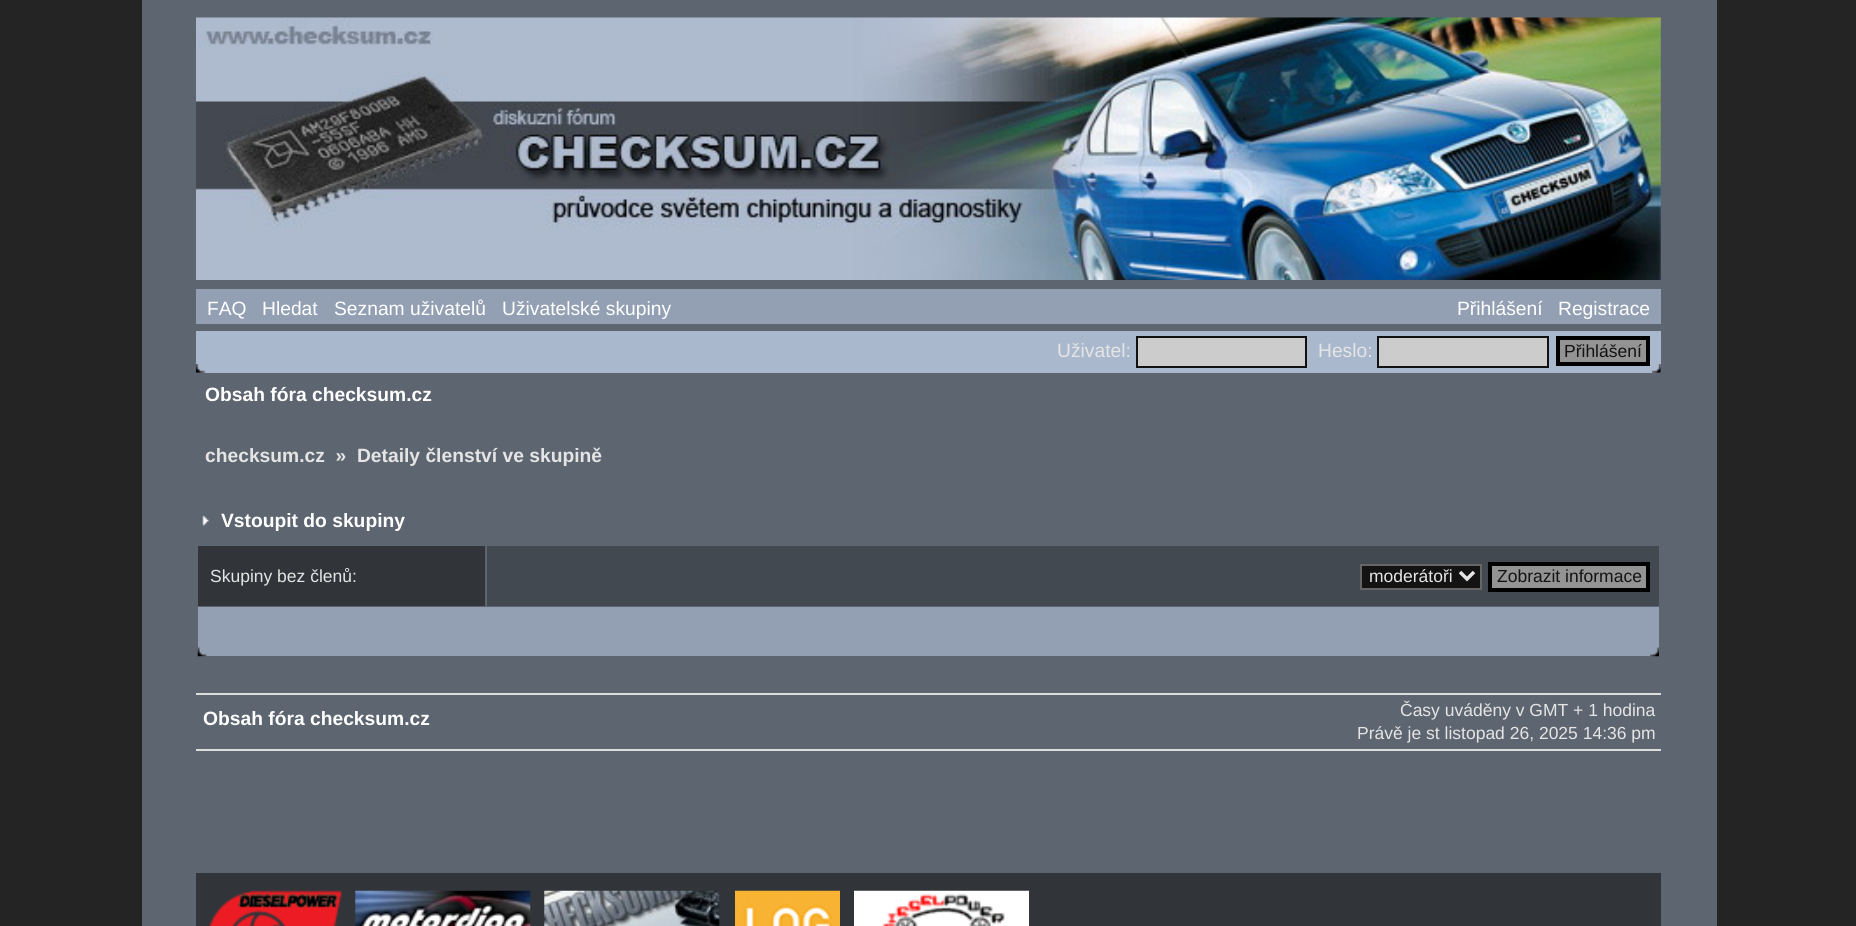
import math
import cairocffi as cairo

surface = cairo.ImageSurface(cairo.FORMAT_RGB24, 1856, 926)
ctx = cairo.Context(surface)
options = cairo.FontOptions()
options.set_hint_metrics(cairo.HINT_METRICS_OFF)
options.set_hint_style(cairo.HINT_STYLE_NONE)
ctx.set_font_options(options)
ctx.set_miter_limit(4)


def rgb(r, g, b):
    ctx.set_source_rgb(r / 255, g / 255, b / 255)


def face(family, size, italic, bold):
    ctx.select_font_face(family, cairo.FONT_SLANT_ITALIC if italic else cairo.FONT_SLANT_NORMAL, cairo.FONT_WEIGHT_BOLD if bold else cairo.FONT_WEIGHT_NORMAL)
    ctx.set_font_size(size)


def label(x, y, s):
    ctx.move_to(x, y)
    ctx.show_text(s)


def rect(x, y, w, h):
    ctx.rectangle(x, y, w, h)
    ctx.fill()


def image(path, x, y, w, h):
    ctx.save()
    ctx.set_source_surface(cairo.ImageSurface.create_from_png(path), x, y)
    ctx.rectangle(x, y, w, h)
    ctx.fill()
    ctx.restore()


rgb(36, 36, 37)
ctx.paint()
rgb(93, 101, 112)
rect(142, 0, 1575, 926)
image('image0.png', 196, 17, 1465, 263)
rgb(147, 160, 179)
rect(196, 289, 1465, 35)
face('Liberation Sans', 19.25, 0, 0)
rgb(255, 255, 255)
label(207, 315, 'FAQ')
label(262, 315, 'Hledat')
label(334, 315, 'Seznam uživatelů')
label(502, 315, 'Uživatelské skupiny')
label(1457, 315, 'Přihlášení')
label(1558, 315, 'Registrace')
rgb(169, 184, 205)
rect(196, 331, 1465, 42)
image('image1.png', 1652, 364, 9, 9)
rgb(229, 229, 229)
label(1057, 357, 'Uživatel:')
rgb(204, 204, 204)
ctx.rectangle(1137, 337, 169, 30)
ctx.fill_preserve()
rgb(17, 17, 17)
ctx.stroke()
rgb(229, 229, 229)
label(1318, 357, 'Heslo:')
rgb(204, 204, 204)
ctx.rectangle(1378, 337, 170, 30)
ctx.fill_preserve()
rgb(17, 17, 17)
ctx.stroke()
rgb(147, 147, 147)
ctx.rectangle(1558, 338, 90, 26)
ctx.fill_preserve()
rgb(0, 0, 0)
ctx.set_line_width(4)
ctx.stroke()
face('Liberation Sans', 17.5, 0, 0)
rgb(19, 19, 19)
label(1564, 357, 'Přihlášení')
image('image2.png', 196, 364, 9, 9)
face('Liberation Sans', 19.25, 0, 1)
rgb(255, 255, 255)
label(205, 401, 'Obsah fóra checksum.cz')
rgb(229, 229, 229)
label(205, 462, 'checksum.cz  »  Detaily členství ve skupině')
image('image3.png', 202, 515, 7, 11)
rgb(255, 255, 255)
label(221, 527, 'Vstoupit do skupiny')
rgb(49, 53, 58)
rect(198, 546, 287, 60)
face('Liberation Sans', 17.5, 0, 0)
rgb(229, 229, 229)
label(210, 582, 'Skupiny bez členů:')
rgb(67, 73, 80)
rect(487, 546, 1172, 60)
rgb(19, 19, 19)
ctx.rectangle(1361, 565, 120, 24)
ctx.fill_preserve()
rgb(102, 102, 102)
ctx.set_line_width(2)
ctx.stroke()
ctx.new_path()
ctx.move_to(1460, 572)
ctx.line_to(1467, 579)
ctx.line_to(1474, 572)
rgb(229, 229, 229)
ctx.set_line_width(3.5)
ctx.stroke()
label(1369, 582, 'moderátoři')
rgb(147, 147, 147)
ctx.rectangle(1490, 564, 158, 26)
ctx.fill_preserve()
rgb(0, 0, 0)
ctx.set_line_width(4)
ctx.stroke()
rgb(19, 19, 19)
label(1497, 582, 'Zobrazit informace')
rgb(147, 160, 179)
rect(198, 607, 1461, 49)
image('image4.png', 197, 647, 10, 10)
image('image5.png', 1650, 647, 9, 10)
rgb(221, 221, 221)
rect(196, 693, 1465, 2)
rect(196, 749, 1465, 2)
face('Liberation Sans', 19.25, 0, 1)
rgb(255, 255, 255)
label(203, 725, 'Obsah fóra checksum.cz')
face('Liberation Sans', 17.5, 0, 0)
rgb(229, 229, 229)
label(1400, 716, 'Časy uváděny v GMT + 1 hodina')
label(1357, 739, 'Právě je st listopad 26, 2025 14:36 pm')
rgb(49, 53, 58)
rect(196, 873, 1465, 53)
image('image6.png', 209, 890, 133, 36)
image('image7.png', 355, 890, 176, 36)
image('image8.png', 544, 890, 176, 36)
image('image9.png', 735, 890, 105, 36)
image('image10.png', 854, 890, 175, 36)
surface.write_to_png('render.png')
